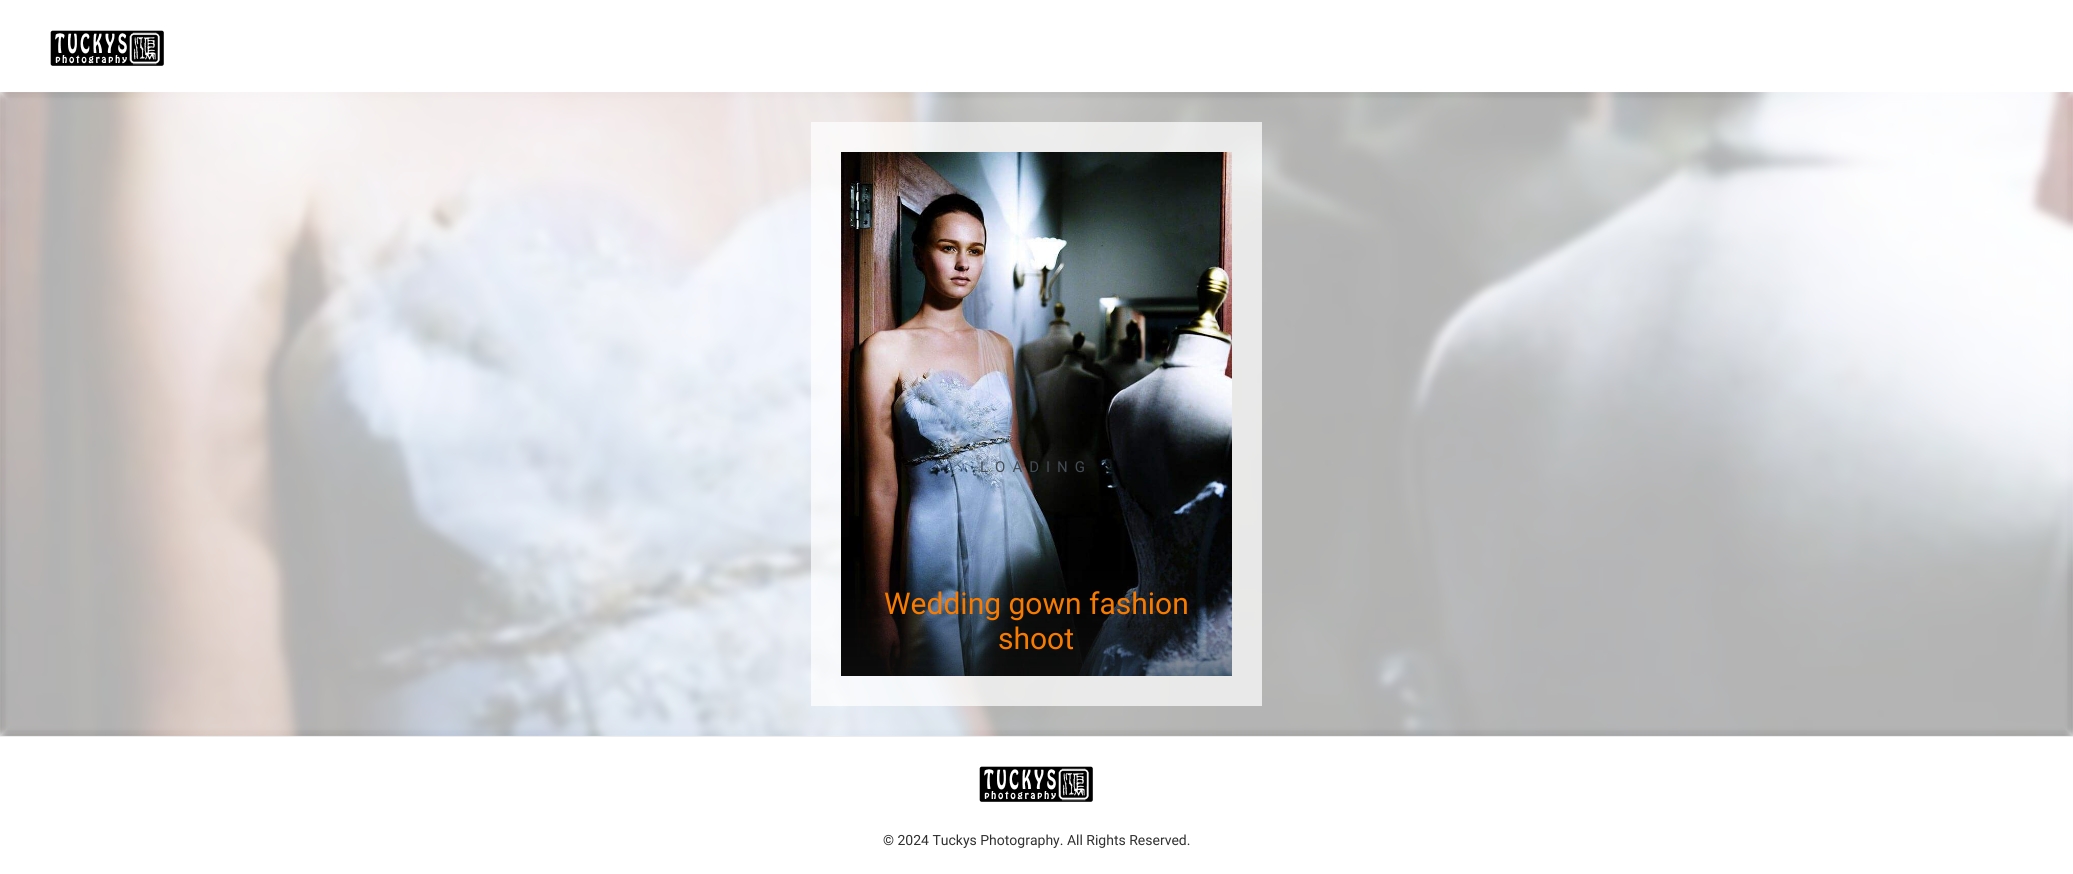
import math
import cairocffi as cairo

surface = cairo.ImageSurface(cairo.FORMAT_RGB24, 2073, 874)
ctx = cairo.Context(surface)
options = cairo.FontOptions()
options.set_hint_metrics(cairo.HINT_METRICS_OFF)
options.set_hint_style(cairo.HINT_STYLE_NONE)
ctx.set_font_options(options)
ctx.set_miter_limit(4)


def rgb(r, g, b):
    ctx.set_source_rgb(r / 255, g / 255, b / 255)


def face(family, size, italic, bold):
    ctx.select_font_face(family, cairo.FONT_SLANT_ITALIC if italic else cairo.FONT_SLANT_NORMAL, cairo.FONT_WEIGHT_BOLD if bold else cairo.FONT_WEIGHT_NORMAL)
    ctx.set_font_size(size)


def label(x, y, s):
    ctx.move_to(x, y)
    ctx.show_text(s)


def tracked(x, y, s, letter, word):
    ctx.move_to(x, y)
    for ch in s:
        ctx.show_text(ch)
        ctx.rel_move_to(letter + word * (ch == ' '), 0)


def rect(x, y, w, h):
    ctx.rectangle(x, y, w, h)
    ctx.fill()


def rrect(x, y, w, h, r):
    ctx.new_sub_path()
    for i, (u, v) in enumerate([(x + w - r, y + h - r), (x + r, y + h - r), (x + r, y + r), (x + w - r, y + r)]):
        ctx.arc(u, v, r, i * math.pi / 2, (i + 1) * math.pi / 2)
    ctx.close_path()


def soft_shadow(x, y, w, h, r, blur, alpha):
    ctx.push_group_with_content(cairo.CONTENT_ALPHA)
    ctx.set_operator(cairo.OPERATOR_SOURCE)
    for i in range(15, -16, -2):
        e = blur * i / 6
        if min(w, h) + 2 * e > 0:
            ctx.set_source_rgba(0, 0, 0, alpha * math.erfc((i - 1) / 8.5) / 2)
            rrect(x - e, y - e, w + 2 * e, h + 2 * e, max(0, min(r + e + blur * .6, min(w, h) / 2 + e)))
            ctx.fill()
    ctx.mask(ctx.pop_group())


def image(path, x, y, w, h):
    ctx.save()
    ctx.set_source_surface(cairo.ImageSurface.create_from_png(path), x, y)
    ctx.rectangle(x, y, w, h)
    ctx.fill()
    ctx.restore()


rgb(255, 255, 255)
ctx.paint()
image('image1.png', 0, 92, 2073, 644)
soft_shadow(0, 92, 2073, 644, 0, 4, 0.7)
ctx.set_source_rgba(1, 1, 1, 0.7)
rect(811, 122, 451, 584)
image('image2.png', 841, 152, 391, 524)
face('Roboto', 15, 0, 0)
rgb(68, 76, 84)
tracked(980, 472, 'LOADING', 7, 0)
image('image0.png', 50, 30, 114, 36)
face('Roboto', 30, 0, 0)
rgb(247, 123, 0)
label(884, 614, 'Wedding gown fashion')
label(998, 649, 'shoot')
rgb(237, 237, 237)
rect(0, 736, 2073, 1)
image('image0.png', 979, 766, 114, 36)
face('Roboto', 14, 0, 0)
rgb(48, 48, 48)
label(883, 845, '© 2024 Tuckys Photography. All Rights Reserved.')
surface.write_to_png('render.png')
